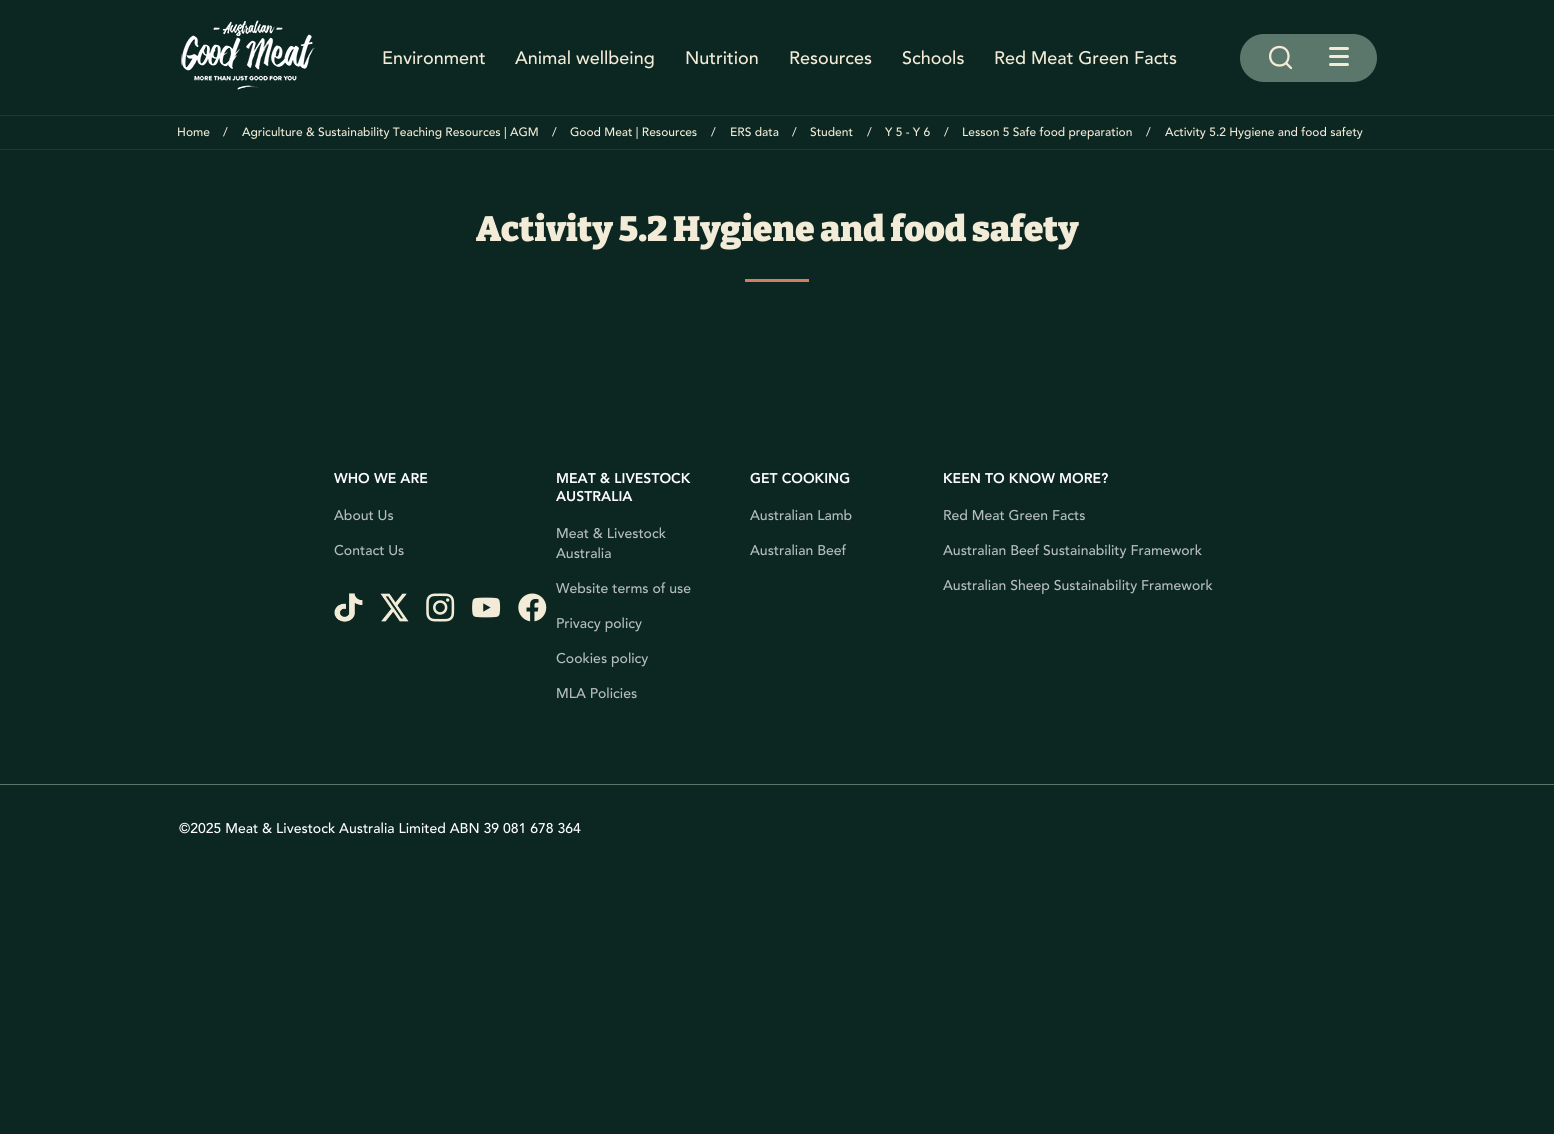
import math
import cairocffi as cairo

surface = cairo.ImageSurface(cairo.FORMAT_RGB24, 1554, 1134)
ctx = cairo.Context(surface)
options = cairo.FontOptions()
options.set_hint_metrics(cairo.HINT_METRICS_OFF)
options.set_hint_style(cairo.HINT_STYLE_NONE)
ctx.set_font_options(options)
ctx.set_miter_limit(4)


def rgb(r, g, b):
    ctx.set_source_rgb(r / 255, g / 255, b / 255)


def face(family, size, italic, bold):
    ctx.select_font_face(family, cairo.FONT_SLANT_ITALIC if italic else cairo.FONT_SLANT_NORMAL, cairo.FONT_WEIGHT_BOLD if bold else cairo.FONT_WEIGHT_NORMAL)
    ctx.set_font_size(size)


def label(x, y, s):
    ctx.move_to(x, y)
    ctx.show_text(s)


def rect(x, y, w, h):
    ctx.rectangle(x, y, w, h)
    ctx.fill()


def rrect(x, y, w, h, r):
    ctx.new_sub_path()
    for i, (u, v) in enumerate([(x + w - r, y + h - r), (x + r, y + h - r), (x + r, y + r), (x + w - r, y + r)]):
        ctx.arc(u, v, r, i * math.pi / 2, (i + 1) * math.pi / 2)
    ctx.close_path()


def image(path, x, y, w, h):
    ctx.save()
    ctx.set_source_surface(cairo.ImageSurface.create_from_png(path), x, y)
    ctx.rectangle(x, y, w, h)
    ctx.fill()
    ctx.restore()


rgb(12, 39, 34)
ctx.paint()
image('image0.png', 181, 20, 134, 70)
face('Avenir Medium', 18, 0, 0)
rgb(242, 235, 216)
label(382, 64, 'Environment')
label(515, 64, 'Animal wellbeing')
label(685, 64, 'Nutrition')
label(789, 64, 'Resources')
label(902, 64, 'Schools')
label(994, 64, 'Red Meat Green Facts')
rgb(91, 119, 107)
rrect(1240, 34, 137, 48, 24)
ctx.fill()
ctx.new_path()
ctx.move_to(1279.5, 65.5)
ctx.curve_to(1291.5, 65.5, 1291.5, 47, 1279.5, 47)
ctx.curve_to(1267, 47, 1267, 65.5, 1279.5, 65.5)
ctx.close_path()
ctx.move_to(1291, 68)
ctx.line_to(1286, 63)
rgb(242, 235, 216)
ctx.set_line_width(2.3)
ctx.set_line_cap(cairo.LINE_CAP_ROUND)
ctx.set_line_join(cairo.LINE_JOIN_ROUND)
ctx.stroke()
rrect(1329, 47, 20, 3, 1.5)
ctx.fill()
rrect(1329, 55, 20, 3, 1.5)
ctx.fill()
rrect(1329, 63, 20, 3, 1.5)
ctx.fill()
rgb(33, 57, 52)
rect(0, 115, 1554, 1)
rect(0, 149, 1554, 1)
face('Avenir Medium', 12, 0, 0)
rgb(242, 235, 216)
label(177, 136, 'Home')
label(223, 136, '/')
label(242, 136, 'Agriculture & Sustainability Teaching Resources | AGM')
label(552, 136, '/')
label(570, 136, 'Good Meat | Resources')
label(711, 136, '/')
label(730, 136, 'ERS data')
label(792, 136, '/')
label(810, 136, 'Student')
label(867, 136, '/')
label(885, 136, 'Y 5 - Y 6')
label(944, 136, '/')
label(962, 136, 'Lesson 5 Safe food preparation')
label(1146, 136, '/')
label(1165, 136, 'Activity 5.2 Hygiene and food safety')
face('Bitter Black', 35, 0, 0)
label(476, 241, 'Activity 5.2 Hygiene and food safety')
rgb(209, 127, 97)
rect(745, 279, 64, 3)
rgb(91, 119, 107)
rect(0, 784, 1554, 1)
face('Avenir Black', 14, 0, 0)
rgb(255, 255, 255)
label(334, 483, 'WHO WE ARE')
face('Avenir Medium', 14, 0, 0)
rgb(182, 190, 189)
label(334, 520, 'About Us')
label(334, 555, 'Contact Us')
image('image1.png', 334, 593, 29, 29)
image('image2.png', 380, 593, 29, 29)
image('image3.png', 426, 593, 29, 29)
image('image4.png', 472, 597, 29, 21)
image('image5.png', 518, 593, 29, 29)
face('Avenir Black', 14, 0, 0)
rgb(255, 255, 255)
label(556, 483, 'MEAT & LIVESTOCK')
label(556, 501, 'AUSTRALIA')
face('Avenir Medium', 14, 0, 0)
rgb(182, 190, 189)
label(556, 538, 'Meat & Livestock')
label(556, 558, 'Australia')
label(556, 593, 'Website terms of use')
label(556, 628, 'Privacy policy')
label(556, 663, 'Cookies policy')
label(556, 698, 'MLA Policies')
face('Avenir Black', 14, 0, 0)
rgb(255, 255, 255)
label(750, 483, 'GET COOKING')
face('Avenir Medium', 14, 0, 0)
rgb(182, 190, 189)
label(750, 520, 'Australian Lamb')
label(750, 555, 'Australian Beef')
face('Avenir Black', 14, 0, 0)
rgb(255, 255, 255)
label(943, 483, 'KEEN TO KNOW MORE?')
face('Avenir Medium', 14, 0, 0)
rgb(182, 190, 189)
label(943, 520, 'Red Meat Green Facts')
label(943, 555, 'Australian Beef Sustainability Framework')
label(943, 590, 'Australian Sheep Sustainability Framework')
rgb(255, 255, 255)
label(179, 833, '©2025 Meat & Livestock Australia Limited ABN 39 081 678 364')
surface.write_to_png('render.png')
